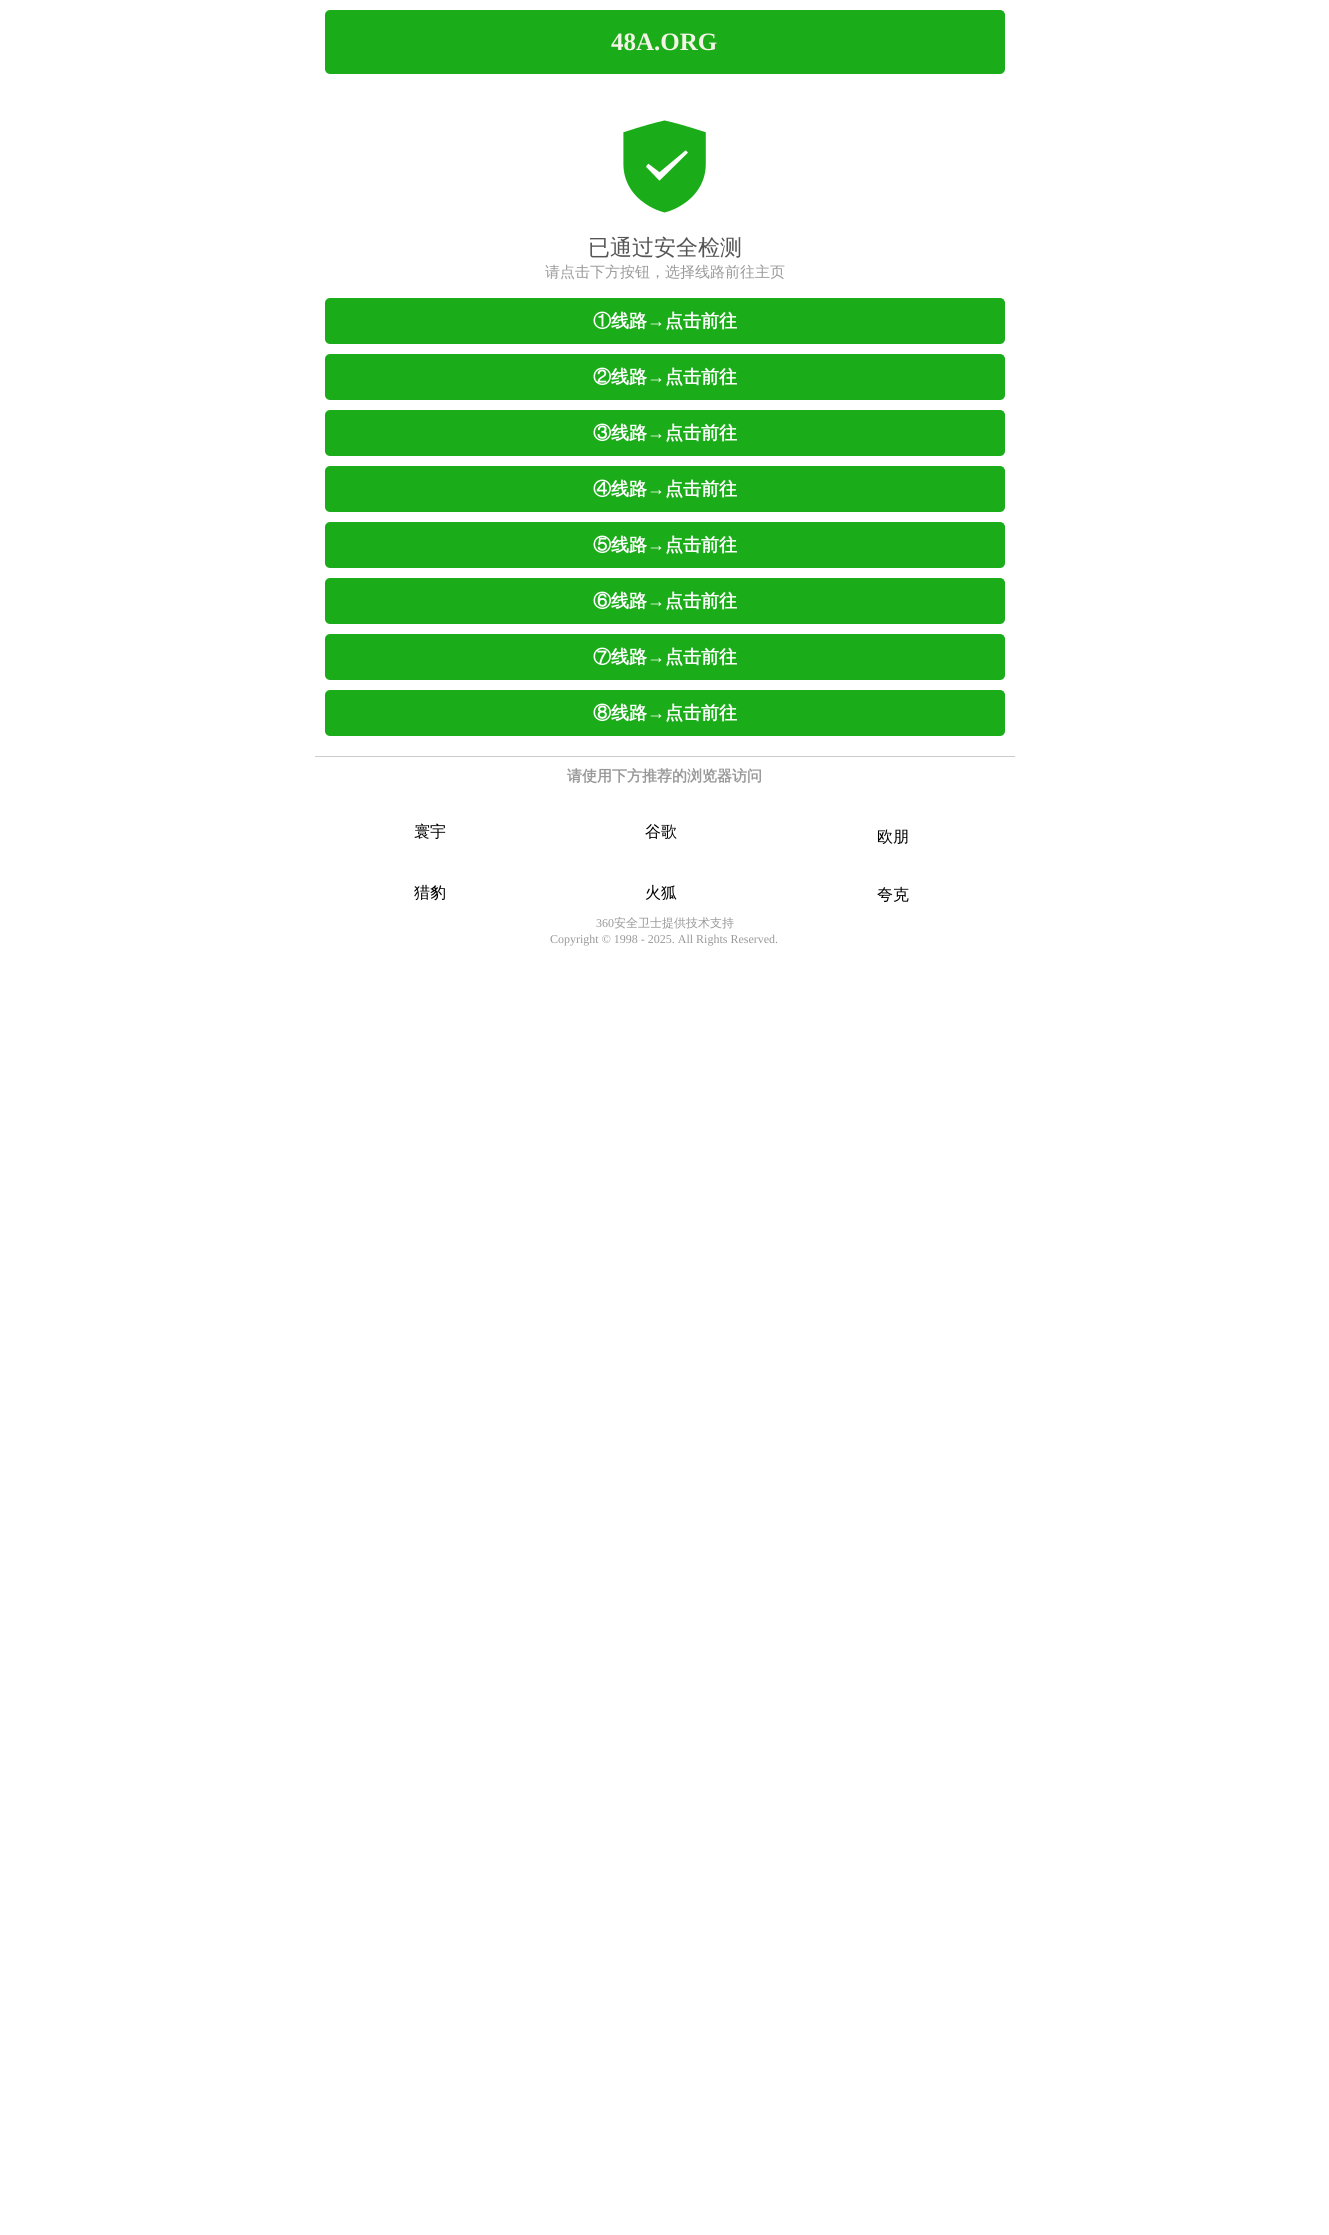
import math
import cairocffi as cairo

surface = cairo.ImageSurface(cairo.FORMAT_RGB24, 1329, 2235)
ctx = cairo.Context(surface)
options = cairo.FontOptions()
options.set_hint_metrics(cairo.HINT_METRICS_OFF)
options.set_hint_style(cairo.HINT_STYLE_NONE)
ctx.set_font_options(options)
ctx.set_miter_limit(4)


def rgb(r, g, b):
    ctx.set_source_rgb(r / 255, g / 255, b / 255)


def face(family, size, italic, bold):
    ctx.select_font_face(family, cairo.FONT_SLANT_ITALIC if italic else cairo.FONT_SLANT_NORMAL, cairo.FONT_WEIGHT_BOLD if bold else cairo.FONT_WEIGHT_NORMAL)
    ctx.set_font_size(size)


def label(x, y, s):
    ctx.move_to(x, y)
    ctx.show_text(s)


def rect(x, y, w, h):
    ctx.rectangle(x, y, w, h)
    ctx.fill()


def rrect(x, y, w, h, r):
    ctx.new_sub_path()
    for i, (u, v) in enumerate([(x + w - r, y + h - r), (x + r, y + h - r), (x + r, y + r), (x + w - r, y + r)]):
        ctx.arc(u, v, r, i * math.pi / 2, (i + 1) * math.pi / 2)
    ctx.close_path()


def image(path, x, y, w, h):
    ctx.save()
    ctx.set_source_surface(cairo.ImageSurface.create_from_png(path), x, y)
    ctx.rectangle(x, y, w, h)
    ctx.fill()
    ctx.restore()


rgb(255, 255, 255)
ctx.paint()
rgb(26, 173, 25)
rrect(325, 10, 680, 64, 5)
ctx.fill()
face('Liberation Serif', 25, 0, 1)
rgb(243, 243, 230)
label(611, 50, '48A.ORG')
image('image0.png', 623, 120, 83, 93)
face('WenQuanYi Zen Hei Medium', 22, 0, 0)
rgb(85, 85, 85)
label(588, 255, '已通过安全检测')
face('WenQuanYi Zen Hei Medium', 15, 0, 0)
rgb(153, 153, 153)
label(545, 277, '请点击下方按钮，选择线路前往主页')
rgb(26, 173, 25)
rrect(325, 298, 680, 46, 5)
ctx.fill()
face('WenQuanYi Zen Hei', 18, 0, 1)
rgb(255, 255, 255)
label(593, 327, '①线路')
face('Liberation Serif', 18, 0, 1)
label(647, 327, '→')
face('WenQuanYi Zen Hei', 18, 0, 1)
label(665, 327, '点击前往')
rgb(26, 173, 25)
rrect(325, 354, 680, 46, 5)
ctx.fill()
rgb(255, 255, 255)
label(593, 383, '②线路')
face('Liberation Serif', 18, 0, 1)
label(647, 383, '→')
face('WenQuanYi Zen Hei', 18, 0, 1)
label(665, 383, '点击前往')
rgb(26, 173, 25)
rrect(325, 410, 680, 46, 5)
ctx.fill()
rgb(255, 255, 255)
label(593, 439, '③线路')
face('Liberation Serif', 18, 0, 1)
label(647, 439, '→')
face('WenQuanYi Zen Hei', 18, 0, 1)
label(665, 439, '点击前往')
rgb(26, 173, 25)
rrect(325, 466, 680, 46, 5)
ctx.fill()
rgb(255, 255, 255)
label(593, 495, '④线路')
face('Liberation Serif', 18, 0, 1)
label(647, 495, '→')
face('WenQuanYi Zen Hei', 18, 0, 1)
label(665, 495, '点击前往')
rgb(26, 173, 25)
rrect(325, 522, 680, 46, 5)
ctx.fill()
rgb(255, 255, 255)
label(593, 551, '⑤线路')
face('Liberation Serif', 18, 0, 1)
label(647, 551, '→')
face('WenQuanYi Zen Hei', 18, 0, 1)
label(665, 551, '点击前往')
rgb(26, 173, 25)
rrect(325, 578, 680, 46, 5)
ctx.fill()
rgb(255, 255, 255)
label(593, 607, '⑥线路')
face('Liberation Serif', 18, 0, 1)
label(647, 607, '→')
face('WenQuanYi Zen Hei', 18, 0, 1)
label(665, 607, '点击前往')
rgb(26, 173, 25)
rrect(325, 634, 680, 46, 5)
ctx.fill()
rgb(255, 255, 255)
label(593, 663, '⑦线路')
face('Liberation Serif', 18, 0, 1)
label(647, 663, '→')
face('WenQuanYi Zen Hei', 18, 0, 1)
label(665, 663, '点击前往')
rgb(26, 173, 25)
rrect(325, 690, 680, 46, 5)
ctx.fill()
rgb(255, 255, 255)
label(593, 719, '⑧线路')
face('Liberation Serif', 18, 0, 1)
label(647, 719, '→')
face('WenQuanYi Zen Hei', 18, 0, 1)
label(665, 719, '点击前往')
rgb(204, 204, 204)
rect(315, 756, 700, 1)
face('WenQuanYi Zen Hei', 15, 0, 1)
rgb(153, 153, 153)
label(567, 781, '请使用下方推荐的浏览器访问')
face('WenQuanYi Zen Hei Medium', 16, 0, 0)
rgb(0, 0, 0)
label(414, 837, '寰宇')
label(645, 837, '谷歌')
label(877, 842, '欧朋')
label(414, 898, '猎豹')
label(645, 898, '火狐')
label(877, 900, '夸克')
face('Liberation Serif', 12, 0, 0)
rgb(153, 153, 153)
label(596, 927, '360')
face('WenQuanYi Zen Hei Medium', 12, 0, 0)
label(614, 927, '安全卫士提供技术支持')
face('Liberation Serif', 12, 0, 0)
label(550, 943, 'Copyright © 1998 - 2025. All Rights Reserved.')
surface.write_to_png('render.png')
